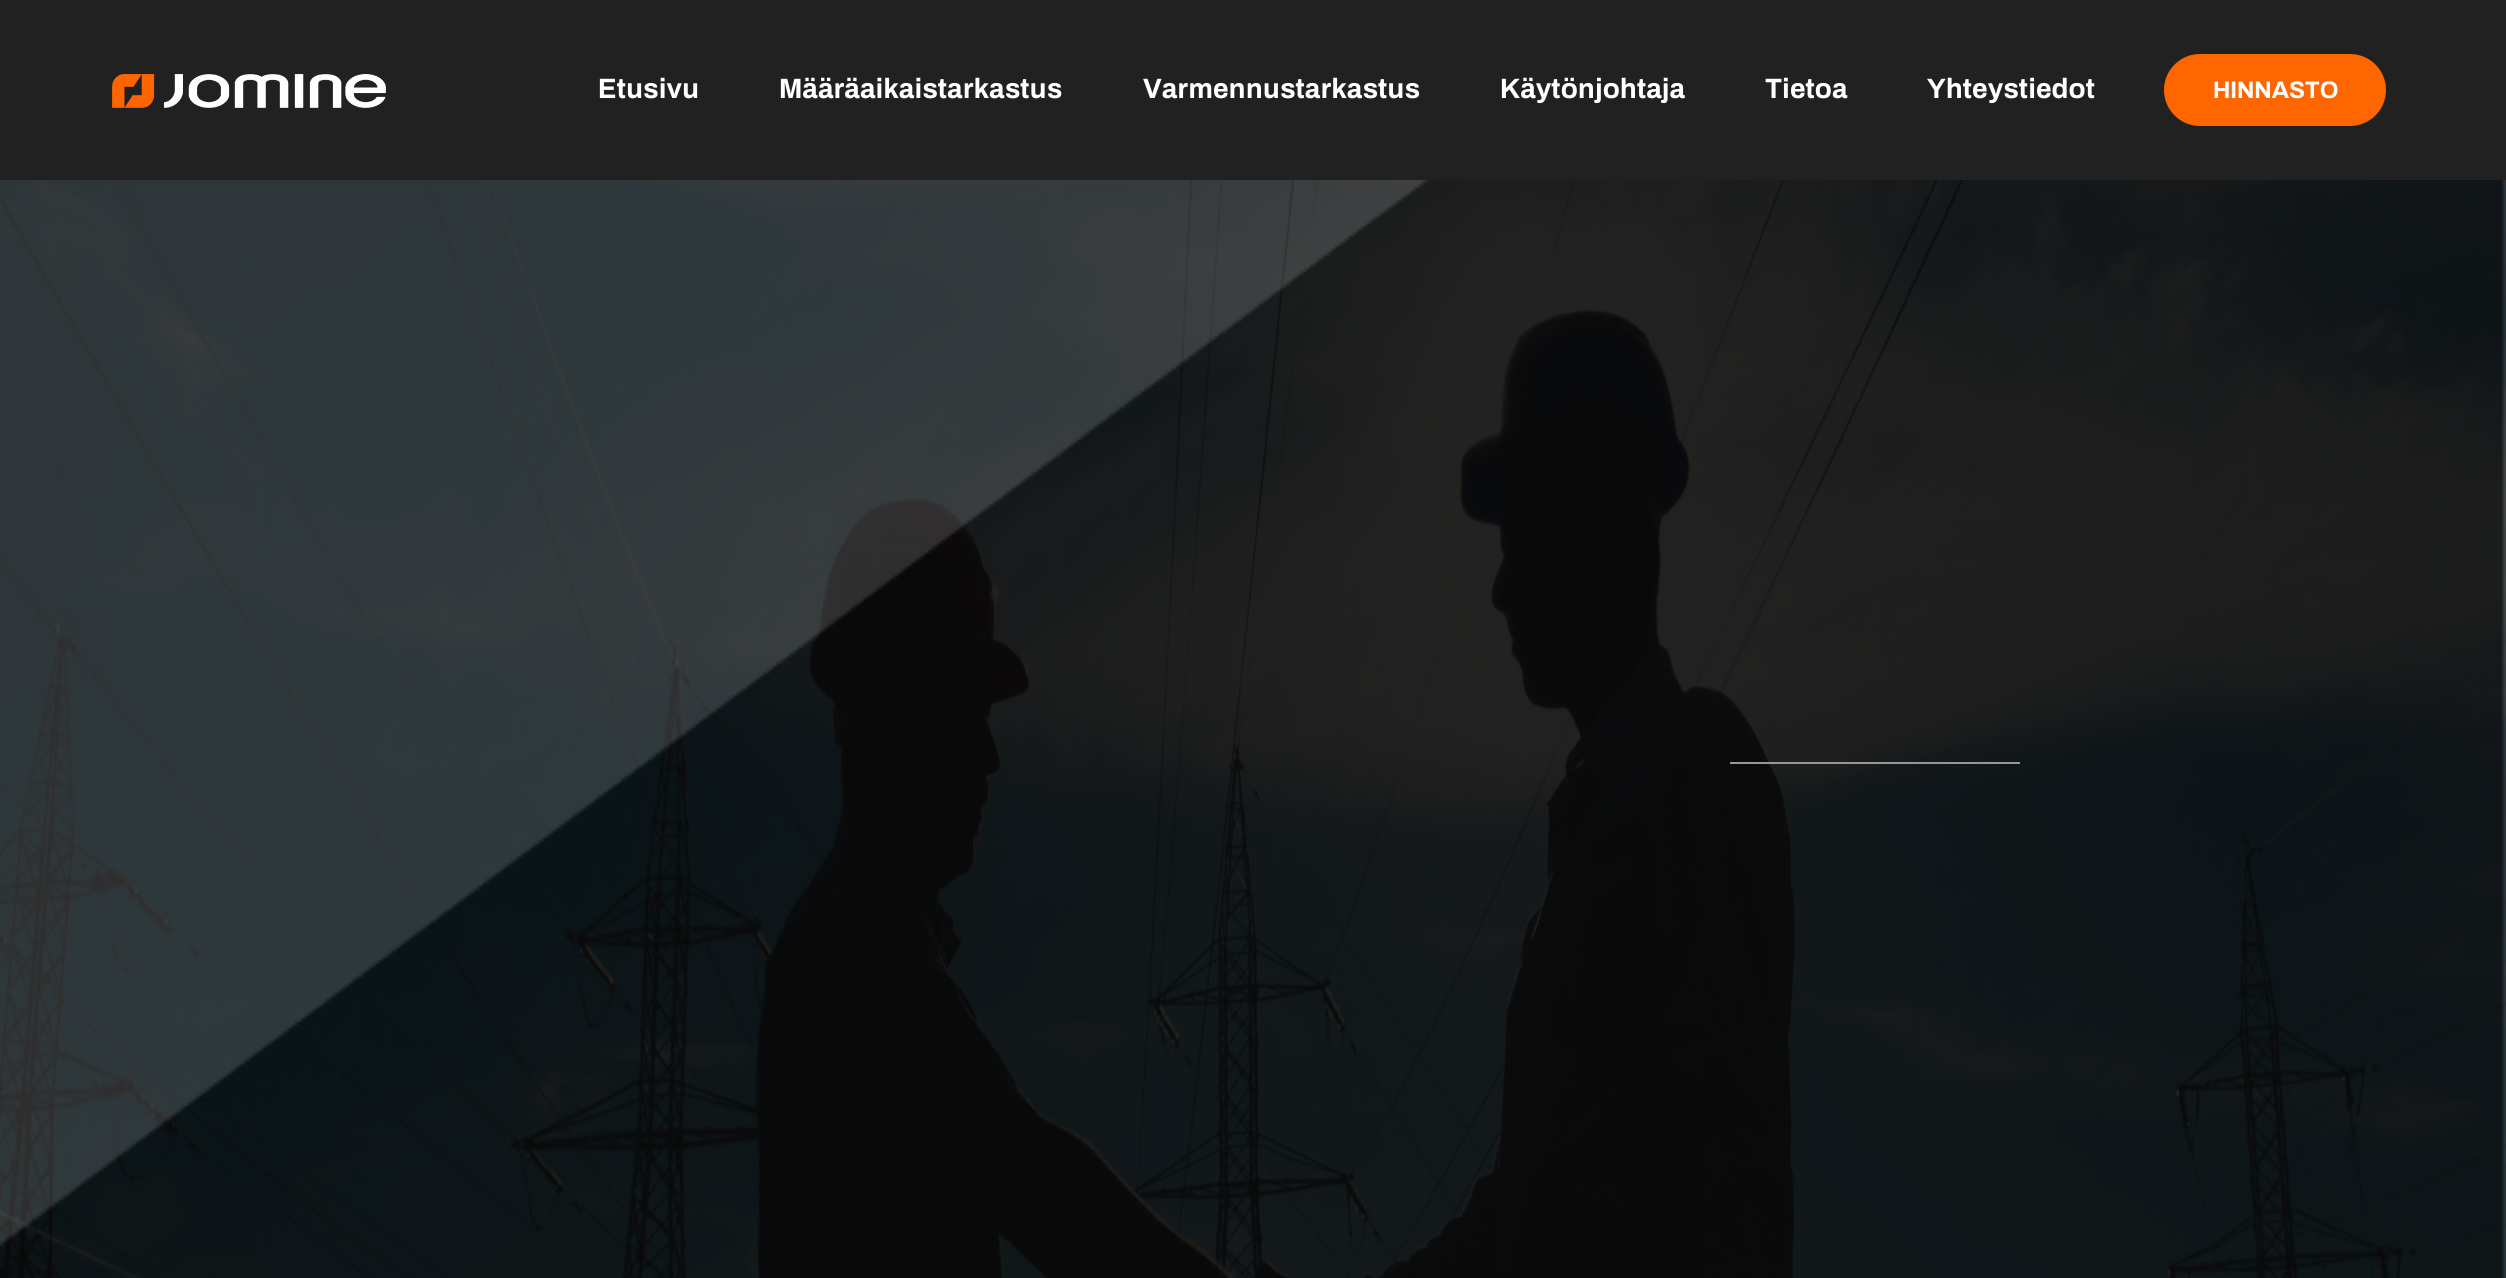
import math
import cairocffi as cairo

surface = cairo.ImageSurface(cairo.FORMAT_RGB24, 2506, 1278)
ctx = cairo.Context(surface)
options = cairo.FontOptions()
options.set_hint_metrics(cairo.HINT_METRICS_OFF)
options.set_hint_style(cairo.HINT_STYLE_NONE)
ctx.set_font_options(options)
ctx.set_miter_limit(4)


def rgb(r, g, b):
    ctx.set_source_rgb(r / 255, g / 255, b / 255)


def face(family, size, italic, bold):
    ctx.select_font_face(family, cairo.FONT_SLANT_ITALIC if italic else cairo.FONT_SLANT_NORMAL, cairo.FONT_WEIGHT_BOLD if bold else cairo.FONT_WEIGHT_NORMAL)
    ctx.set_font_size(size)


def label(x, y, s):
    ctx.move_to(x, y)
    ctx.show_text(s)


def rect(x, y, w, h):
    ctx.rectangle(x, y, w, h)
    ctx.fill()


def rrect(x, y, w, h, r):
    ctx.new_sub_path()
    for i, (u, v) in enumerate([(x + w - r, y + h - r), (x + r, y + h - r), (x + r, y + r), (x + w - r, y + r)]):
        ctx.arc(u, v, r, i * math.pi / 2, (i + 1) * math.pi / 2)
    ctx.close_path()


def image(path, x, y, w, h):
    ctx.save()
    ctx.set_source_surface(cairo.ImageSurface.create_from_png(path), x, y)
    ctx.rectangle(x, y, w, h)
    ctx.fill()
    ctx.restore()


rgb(255, 255, 255)
ctx.paint()
rgb(33, 33, 33)
rect(0, 0, 2506, 180)
image('image0.png', 112, 74, 274, 34)
face('Archivo', 28, 0, 1)
rgb(255, 255, 255)
label(598, 98, 'Etusivu')
label(779, 98, 'Määräaikaistarkastus')
label(1143, 98, 'Varmennustarkastus')
label(1500, 98, 'Käytönjohtaja')
label(1765, 98, 'Tietoa')
label(1927, 98, 'Yhteystiedot')
rgb(255, 102, 0)
rrect(2164, 54, 222, 72, 36)
ctx.fill()
face('Archivo', 24, 0, 1)
rgb(255, 255, 255)
label(2213, 98, 'HINNASTO')
image('image1.png', 0, 180, 2506, 1098)
image('image2.png', 0, 180, 2506, 1098)
rgb(151, 151, 151)
rect(1730, 762, 290, 2)
surface.write_to_png('render.png')
